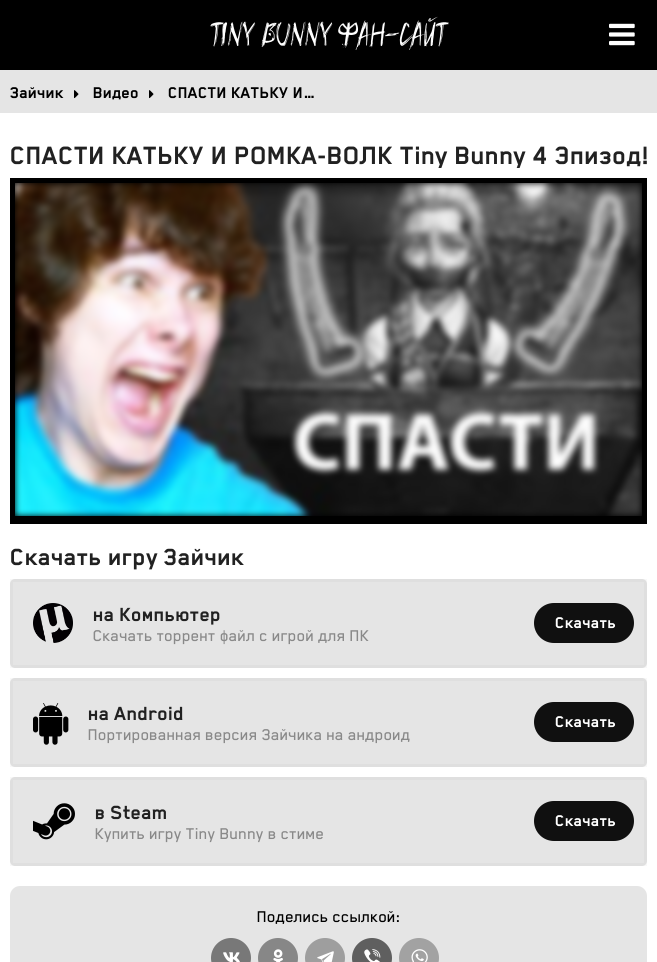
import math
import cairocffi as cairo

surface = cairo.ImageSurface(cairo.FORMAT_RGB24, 657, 962)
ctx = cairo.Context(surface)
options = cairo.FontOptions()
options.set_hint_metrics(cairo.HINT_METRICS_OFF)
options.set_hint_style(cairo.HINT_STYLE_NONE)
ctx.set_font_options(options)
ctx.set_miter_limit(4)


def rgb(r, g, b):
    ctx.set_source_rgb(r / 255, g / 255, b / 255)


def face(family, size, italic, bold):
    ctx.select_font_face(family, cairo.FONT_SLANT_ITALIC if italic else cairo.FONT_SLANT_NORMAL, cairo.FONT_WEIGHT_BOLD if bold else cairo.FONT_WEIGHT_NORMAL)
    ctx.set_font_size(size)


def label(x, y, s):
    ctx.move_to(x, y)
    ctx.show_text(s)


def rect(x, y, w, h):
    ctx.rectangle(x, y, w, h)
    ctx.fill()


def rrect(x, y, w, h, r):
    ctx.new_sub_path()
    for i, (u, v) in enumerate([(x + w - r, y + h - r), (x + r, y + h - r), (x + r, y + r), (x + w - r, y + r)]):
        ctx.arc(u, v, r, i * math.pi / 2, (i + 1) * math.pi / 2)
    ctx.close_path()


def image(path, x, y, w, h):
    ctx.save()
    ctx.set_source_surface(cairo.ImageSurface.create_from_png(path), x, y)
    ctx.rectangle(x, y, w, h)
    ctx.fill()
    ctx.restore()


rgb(255, 255, 255)
ctx.paint()
rgb(0, 0, 0)
rect(0, 0, 657, 70)
face('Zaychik', 34, 0, 0)
rgb(255, 255, 255)
label(211, 46, 'Tiny Bunny Фан-сайт')
image('image0.png', 609, 23, 26, 23)
rgb(229, 229, 229)
rect(0, 70, 657, 43)
face('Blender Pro', 18, 0, 1)
rgb(0, 0, 0)
label(10, 98, 'Зайчик')
image('image1.png', 74, 90, 5, 9)
label(93, 98, 'Видео')
image('image1.png', 149, 90, 5, 9)
label(168, 98, 'СПАСТИ КАТЬКУ И…')
ctx.save()
ctx.rectangle(10, 143, 637, 25)
ctx.clip()
face('Blender Pro', 29, 0, 1)
rgb(33, 33, 33)
label(10, 164, 'СПАСТИ КАТЬКУ И РОМКА-ВОЛК Tiny Bunny 4 Эпизод!')
ctx.restore()
rect(15, 183, 627, 333)
rect(10, 178, 637, 5)
rect(642, 178, 5, 346)
rect(10, 516, 637, 8)
rect(10, 178, 5, 346)
image('image2.png', 15, 183, 627, 333)
face('Blender Pro', 27, 0, 1)
rgb(33, 33, 33)
label(10, 565, 'Скачать игру Зайчик')
rgb(229, 229, 229)
rrect(10, 579, 637, 89, 5)
ctx.fill()
ctx.rectangle(11.5, 580.5, 634, 86)
ctx.set_source_rgba(0, 0, 0, 0.03)
ctx.set_line_width(3)
ctx.stroke()
image('image3.png', 33, 603, 40, 40)
face('Blender Pro', 22, 0, 1)
rgb(33, 33, 33)
label(93, 621, 'на Компьютер')
face('Blender Pro Medium', 18, 0, 0)
rgb(137, 137, 137)
label(93, 641, 'Скачать торрент файл с игрой для ПК')
rgb(16, 16, 16)
rrect(534, 603, 100, 40, 20)
ctx.fill()
face('Blender Pro', 18, 0, 1)
rgb(255, 255, 255)
label(555, 628, 'Скачать')
rgb(229, 229, 229)
rrect(10, 678, 637, 89, 5)
ctx.fill()
ctx.rectangle(11.5, 679.5, 634, 86)
ctx.set_source_rgba(0, 0, 0, 0.03)
ctx.stroke()
image('image4.png', 33, 703, 36, 42)
face('Blender Pro', 22, 0, 1)
rgb(33, 33, 33)
label(88, 720, 'на Android')
face('Blender Pro Medium', 18, 0, 0)
rgb(137, 137, 137)
label(88, 740, 'Портированная версия Зайчика на андроид')
rgb(16, 16, 16)
rrect(534, 702, 100, 40, 20)
ctx.fill()
face('Blender Pro', 18, 0, 1)
rgb(255, 255, 255)
label(555, 727, 'Скачать')
rgb(229, 229, 229)
rrect(10, 777, 637, 89, 5)
ctx.fill()
ctx.rectangle(11.5, 778.5, 634, 86)
ctx.set_source_rgba(0, 0, 0, 0.03)
ctx.stroke()
image('image5.png', 33, 803, 42, 37)
face('Blender Pro', 22, 0, 1)
rgb(33, 33, 33)
label(95, 819, 'в Steam')
face('Blender Pro Medium', 18, 0, 0)
rgb(137, 137, 137)
label(95, 839, 'Купить игру Tiny Bunny в стиме')
rgb(16, 16, 16)
rrect(534, 801, 100, 40, 20)
ctx.fill()
face('Blender Pro', 18, 0, 1)
rgb(255, 255, 255)
label(555, 826, 'Скачать')
rgb(229, 229, 229)
rrect(10, 886, 637, 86, 10)
ctx.fill()
face('Blender Pro Medium', 18, 0, 0)
rgb(0, 0, 0)
label(257, 922, 'Поделись ссылкой:')
rgb(120, 120, 120)
ctx.new_path()
ctx.arc(231, 958, 20, 0, 2 * math.pi)
ctx.fill()
image('image6.png', 223, 952, 17, 10)
rgb(135, 135, 135)
ctx.arc(278, 958, 20, 0, 2 * math.pi)
ctx.fill()
image('image7.png', 273, 949, 10, 13)
rgb(158, 158, 158)
ctx.arc(325, 958, 20, 0, 2 * math.pi)
ctx.fill()
image('image8.png', 317, 951, 17, 11)
rgb(95, 95, 95)
ctx.arc(372, 958, 20, 0, 2 * math.pi)
ctx.fill()
image('image9.png', 364, 949, 17, 13)
rgb(162, 162, 162)
ctx.arc(419, 958, 20, 0, 2 * math.pi)
ctx.fill()
image('image10.png', 411, 949, 17, 13)
surface.write_to_png('render.png')
